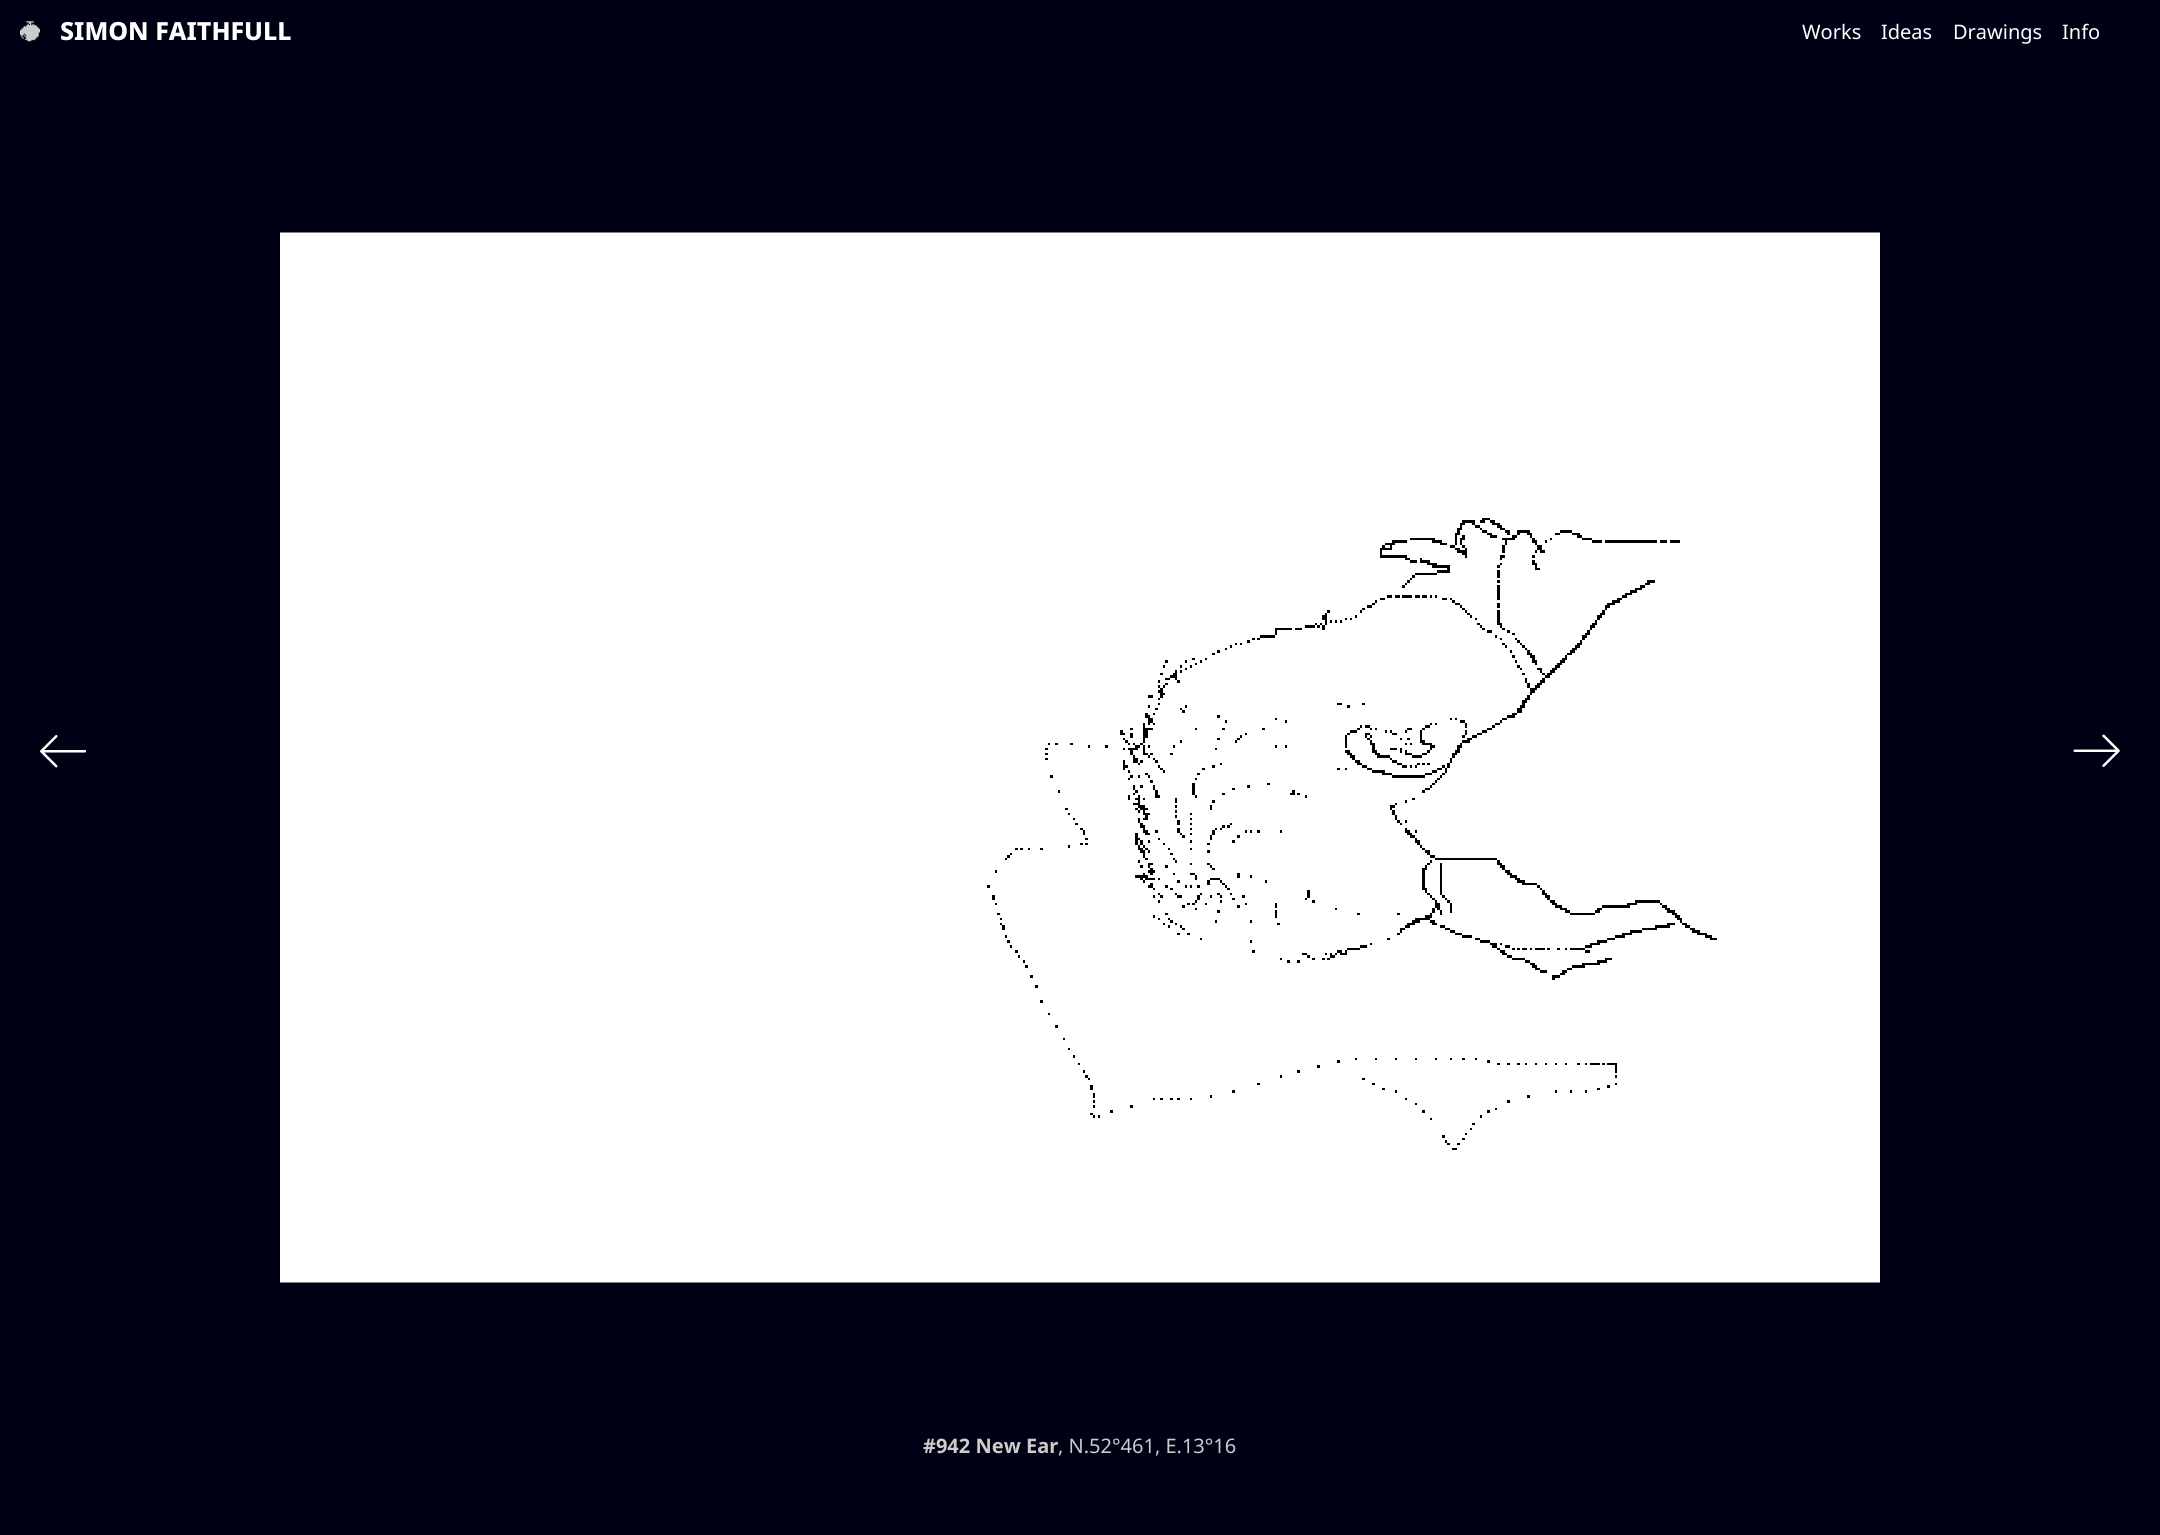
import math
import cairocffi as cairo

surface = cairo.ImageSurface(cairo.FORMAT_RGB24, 2160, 1535)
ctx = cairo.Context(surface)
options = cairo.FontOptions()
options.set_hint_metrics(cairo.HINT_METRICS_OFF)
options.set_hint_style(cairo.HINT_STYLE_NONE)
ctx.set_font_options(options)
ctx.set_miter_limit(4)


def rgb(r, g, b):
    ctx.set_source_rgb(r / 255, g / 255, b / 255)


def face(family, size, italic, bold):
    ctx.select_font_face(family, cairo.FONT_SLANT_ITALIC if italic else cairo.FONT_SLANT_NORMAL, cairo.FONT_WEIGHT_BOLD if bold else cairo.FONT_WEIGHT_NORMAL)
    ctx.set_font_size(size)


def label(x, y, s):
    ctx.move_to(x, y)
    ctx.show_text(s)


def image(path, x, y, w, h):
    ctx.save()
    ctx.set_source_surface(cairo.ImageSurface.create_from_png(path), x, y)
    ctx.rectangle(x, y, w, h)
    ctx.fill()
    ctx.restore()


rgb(0, 0, 21)
ctx.paint()
image('image0.png', 20, 21, 20, 21)
face('Noto Sans ExtraBold', 25, 0, 0)
rgb(255, 255, 255)
label(60, 40, 'SIMON FAITHFULL')
face('Noto Sans', 20, 0, 0)
label(1802, 39, 'Works')
label(1881, 39, 'Ideas')
label(1953, 39, 'Drawings')
label(2062, 39, 'Info')
image('image1.png', 40, 735, 46, 33)
image('image2.png', 2073, 734, 47, 33)
image('image3.png', 280, 232, 1600, 1051)
face('Noto Sans', 20, 0, 1)
rgb(204, 204, 204)
label(923, 1453, '#942 New Ear')
face('Noto Sans', 20, 0, 0)
label(1058, 1453, ', N.52°461, E.13°16')
surface.write_to_png('render.png')
